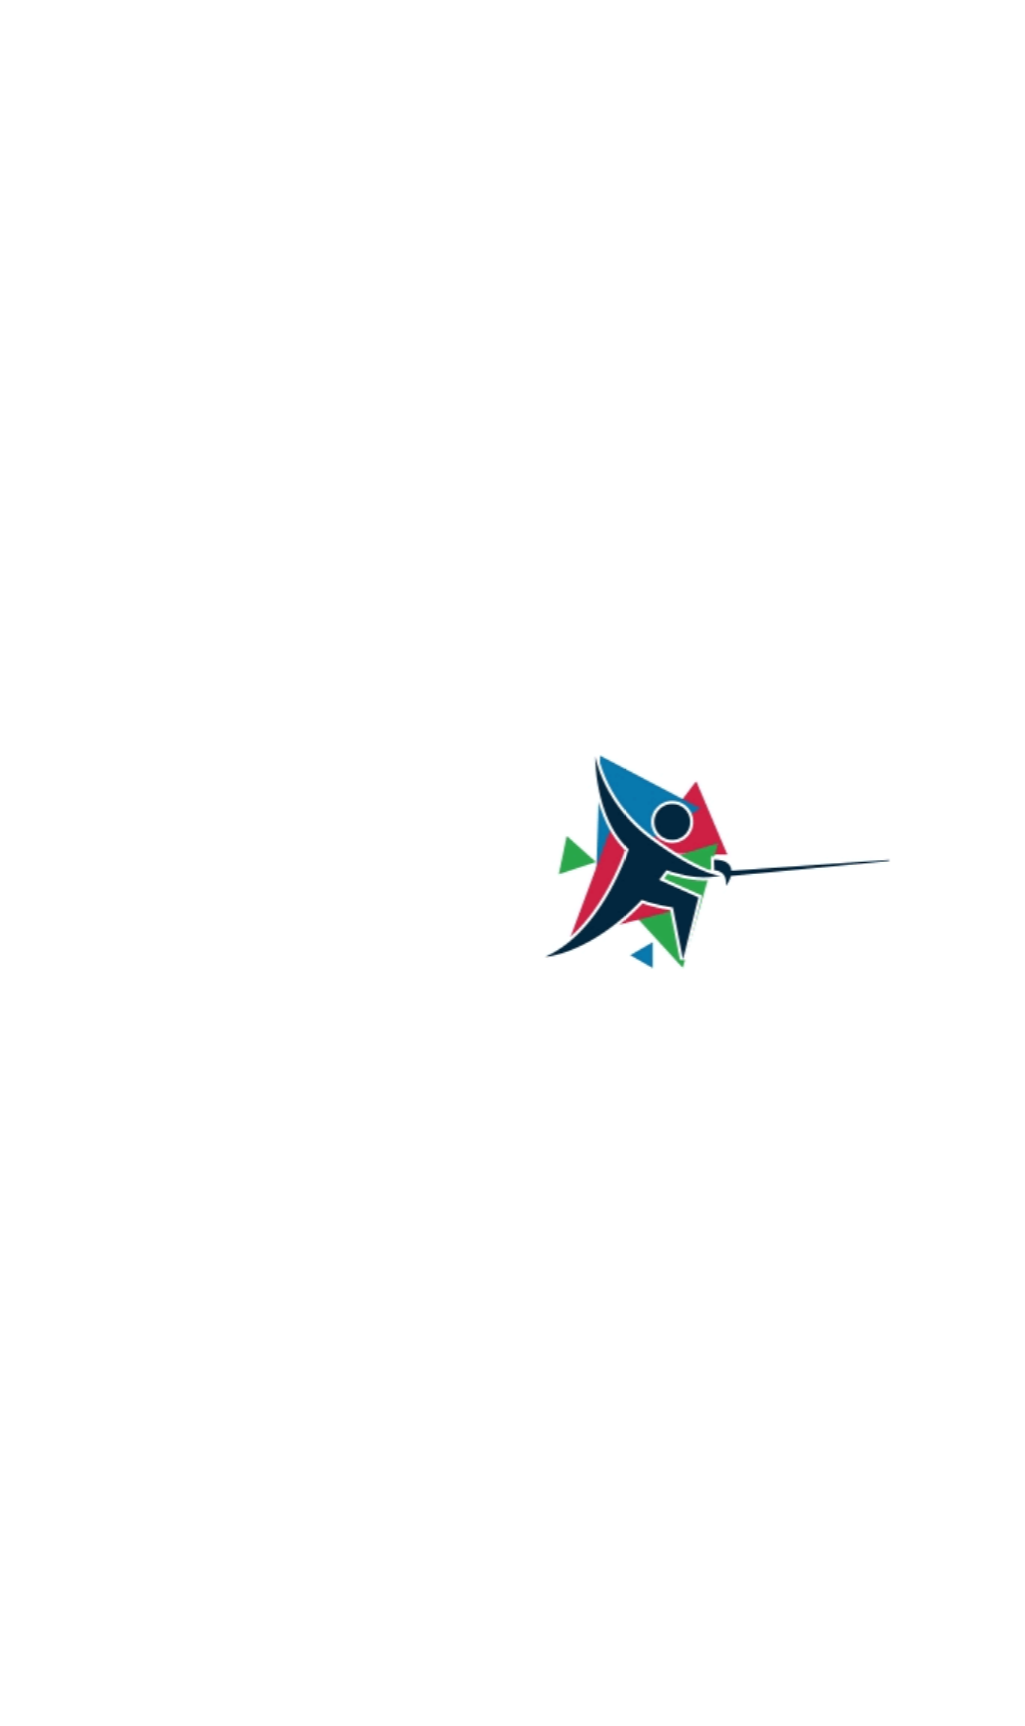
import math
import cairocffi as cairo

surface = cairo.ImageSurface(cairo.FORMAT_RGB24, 1025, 1726)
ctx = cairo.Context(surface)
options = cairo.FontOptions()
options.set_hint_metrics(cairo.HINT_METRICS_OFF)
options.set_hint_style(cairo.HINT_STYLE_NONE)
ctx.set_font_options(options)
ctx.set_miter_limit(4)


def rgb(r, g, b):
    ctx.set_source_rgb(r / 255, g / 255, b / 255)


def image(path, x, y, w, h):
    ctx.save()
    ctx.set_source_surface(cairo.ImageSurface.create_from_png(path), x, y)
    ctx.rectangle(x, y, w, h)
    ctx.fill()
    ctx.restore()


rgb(255, 255, 255)
ctx.paint()
image('image0.png', 544, 754, 347, 216)
surface.write_to_png('render.png')
